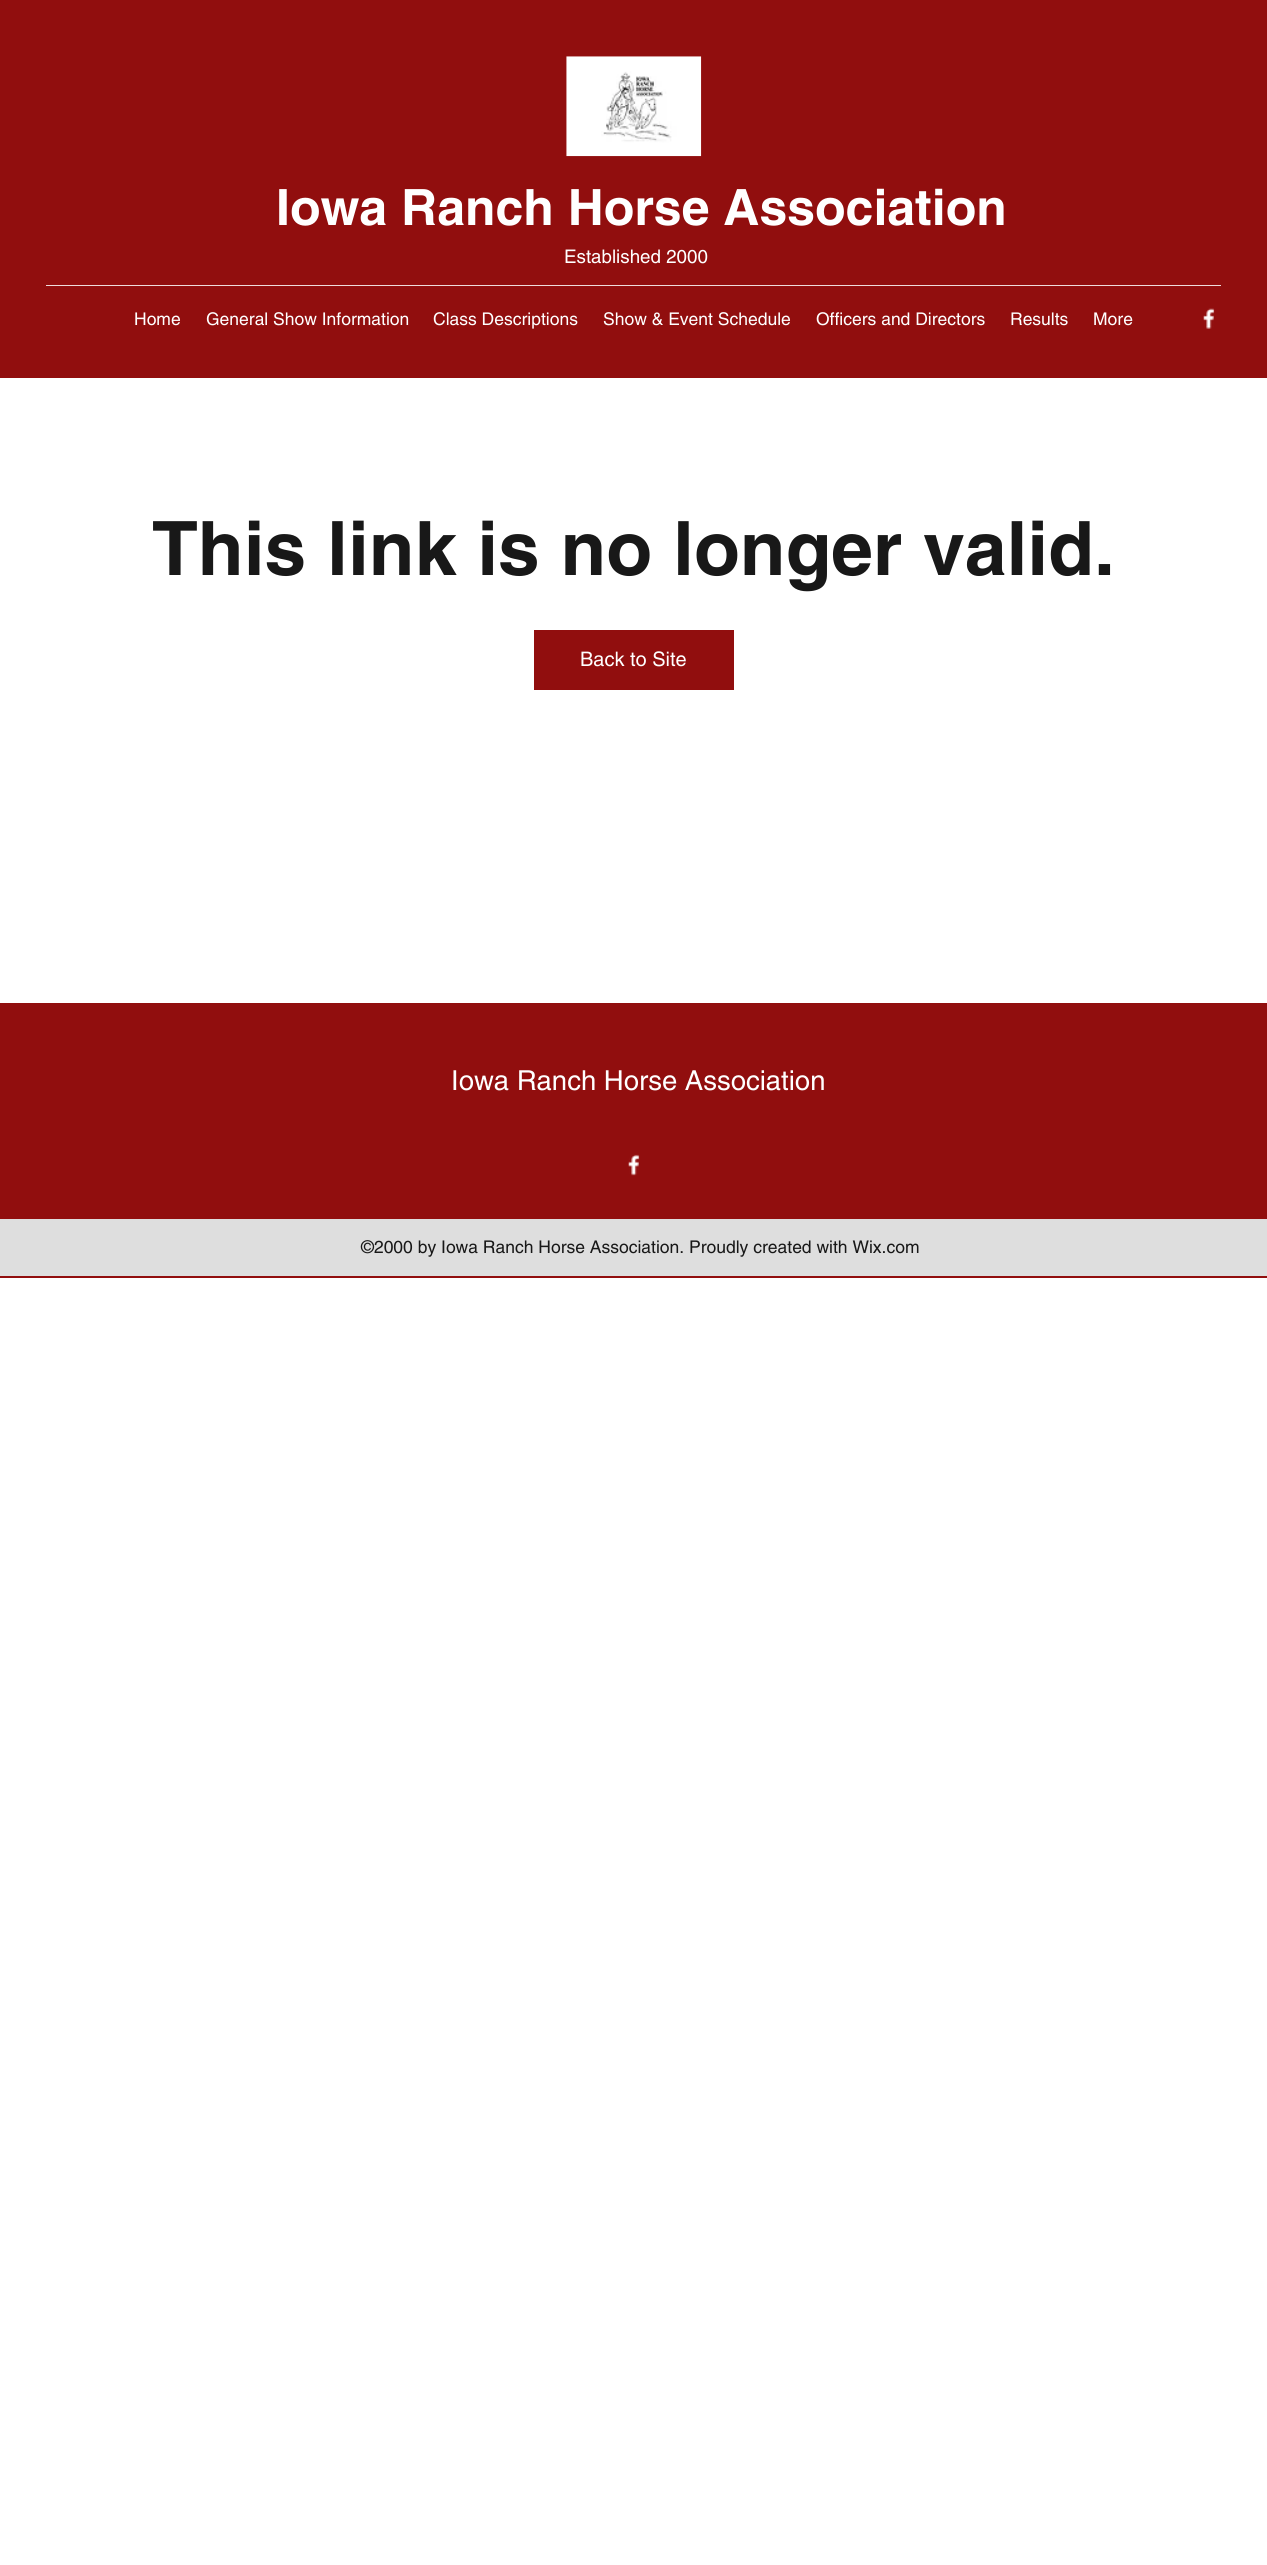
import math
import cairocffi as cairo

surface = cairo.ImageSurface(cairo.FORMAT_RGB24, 1267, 2565)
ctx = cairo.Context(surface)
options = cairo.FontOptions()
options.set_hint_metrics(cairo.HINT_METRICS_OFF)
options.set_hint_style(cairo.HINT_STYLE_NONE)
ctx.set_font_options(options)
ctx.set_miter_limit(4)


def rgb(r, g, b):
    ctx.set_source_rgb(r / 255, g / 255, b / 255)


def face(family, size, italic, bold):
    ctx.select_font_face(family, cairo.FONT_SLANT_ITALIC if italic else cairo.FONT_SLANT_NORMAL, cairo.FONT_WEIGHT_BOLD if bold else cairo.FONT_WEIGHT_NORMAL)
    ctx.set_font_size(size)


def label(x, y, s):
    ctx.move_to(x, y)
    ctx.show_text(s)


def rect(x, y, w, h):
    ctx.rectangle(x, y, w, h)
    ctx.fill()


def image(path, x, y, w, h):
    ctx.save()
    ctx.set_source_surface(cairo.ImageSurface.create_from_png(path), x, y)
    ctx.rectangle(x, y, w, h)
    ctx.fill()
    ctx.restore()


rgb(255, 255, 255)
ctx.paint()
rgb(145, 14, 14)
rect(0, 0, 1267, 378)
image('image0.png', 566, 56, 136, 101)
face('helvetica', 50, 0, 1)
rgb(255, 255, 255)
label(276, 225, 'Iowa Ranch Horse Association')
face('helvetica', 18.75, 0, 0)
label(564, 263, 'Established 2000')
rgb(239, 219, 219)
rect(46, 285, 1175, 1)
face('helvetica', 17.5, 0, 0)
rgb(255, 255, 255)
label(134, 325, 'Home')
label(206, 325, 'General Show Information')
label(433, 325, 'Class Descriptions')
label(603, 325, 'Show & Event Schedule')
label(816, 325, 'Officers and Directors')
label(1010, 325, 'Results')
label(1093, 325, 'More')
image('image1.png', 1203, 308, 12, 21)
face('helvetica', 75, 0, 1)
rgb(24, 24, 24)
label(152, 575, 'This link is no longer valid.')
rgb(145, 14, 14)
rect(534, 630, 200, 60)
face('helvetica', 20, 0, 0)
rgb(255, 255, 255)
label(580, 666, 'Back to Site')
rgb(145, 14, 14)
rect(0, 1003, 1267, 275)
face('helvetica', 27.5, 0, 0)
rgb(255, 255, 255)
label(451, 1090, 'Iowa Ranch Horse Association')
image('image2.png', 628, 1154, 12, 22)
rgb(222, 222, 222)
rect(0, 1219, 1267, 57)
face('helvetica', 17.5, 0, 0)
rgb(24, 24, 24)
label(361, 1253, '©2000 by Iowa Ranch Horse Association. Proudly created with Wix.com')
surface.write_to_png('render.png')
